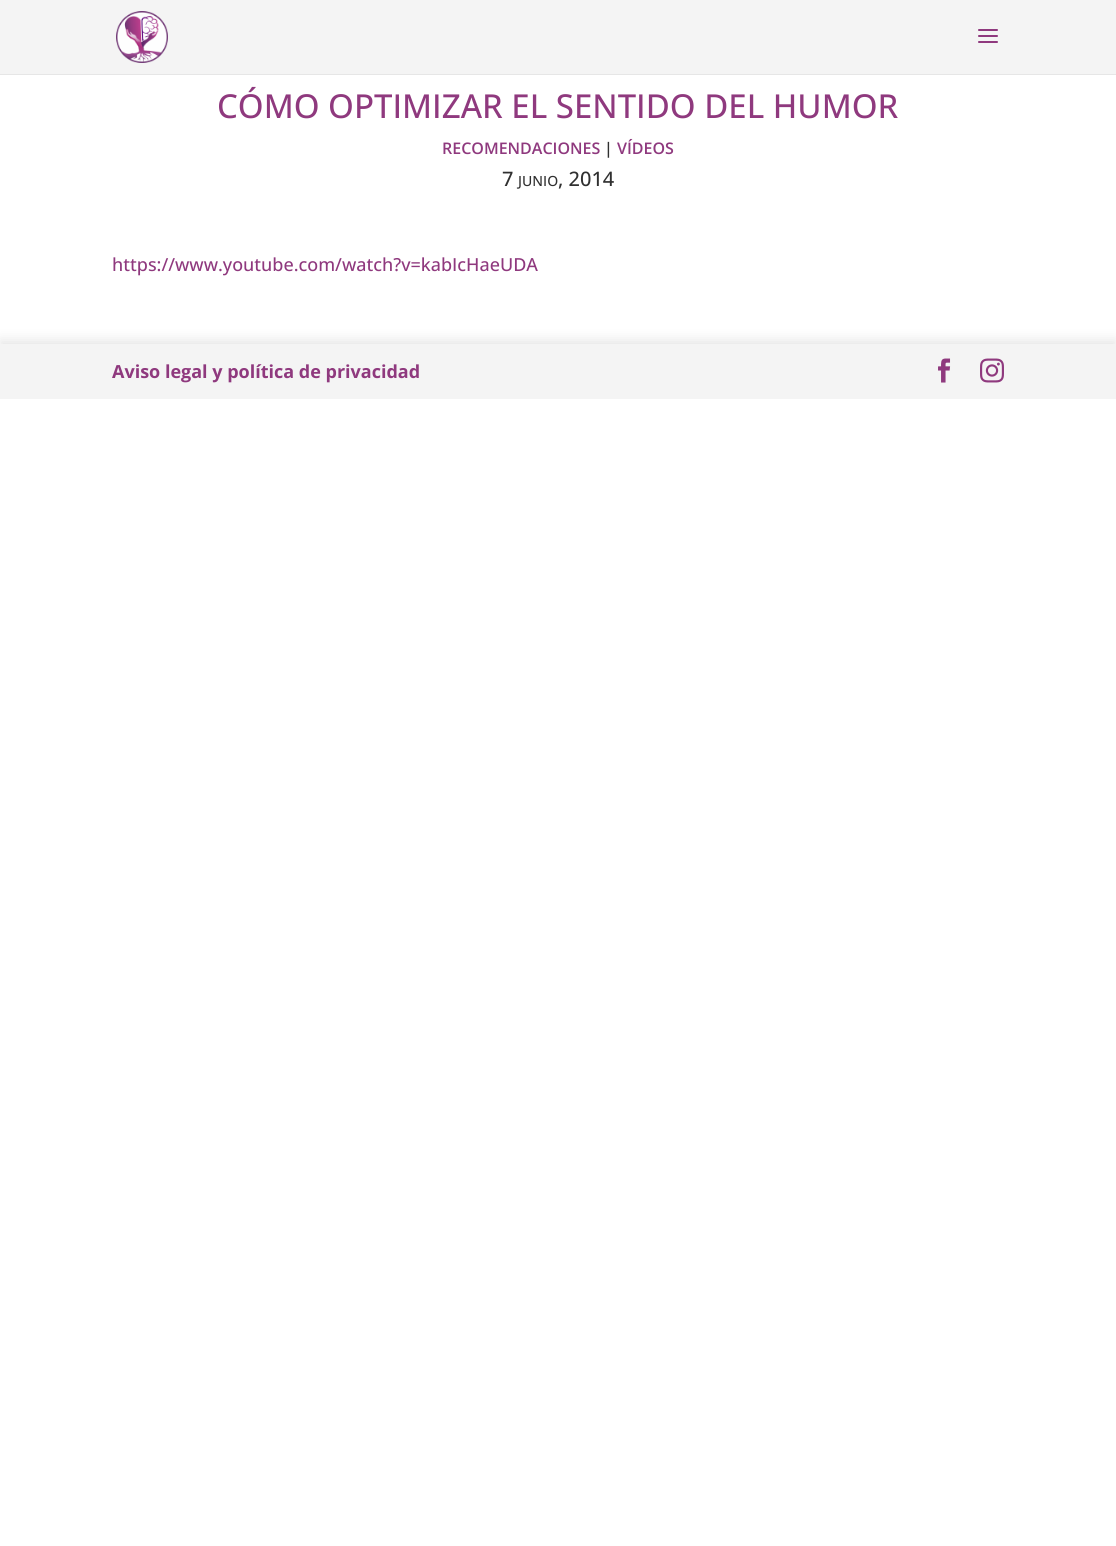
import math
import cairocffi as cairo

surface = cairo.ImageSurface(cairo.FORMAT_RGB24, 1116, 1546)
ctx = cairo.Context(surface)
options = cairo.FontOptions()
options.set_hint_metrics(cairo.HINT_METRICS_OFF)
options.set_hint_style(cairo.HINT_STYLE_NONE)
ctx.set_font_options(options)
ctx.set_miter_limit(4)


def rgb(r, g, b):
    ctx.set_source_rgb(r / 255, g / 255, b / 255)


def face(family, size, italic, bold):
    ctx.select_font_face(family, cairo.FONT_SLANT_ITALIC if italic else cairo.FONT_SLANT_NORMAL, cairo.FONT_WEIGHT_BOLD if bold else cairo.FONT_WEIGHT_NORMAL)
    ctx.set_font_size(size)


def label(x, y, s):
    ctx.move_to(x, y)
    ctx.show_text(s)


def rect(x, y, w, h):
    ctx.rectangle(x, y, w, h)
    ctx.fill()


def rrect(x, y, w, h, r):
    ctx.new_sub_path()
    for i, (u, v) in enumerate([(x + w - r, y + h - r), (x + r, y + h - r), (x + r, y + r), (x + w - r, y + r)]):
        ctx.arc(u, v, r, i * math.pi / 2, (i + 1) * math.pi / 2)
    ctx.close_path()


def soft_shadow(x, y, w, h, r, blur, alpha):
    ctx.push_group_with_content(cairo.CONTENT_ALPHA)
    ctx.set_operator(cairo.OPERATOR_SOURCE)
    for i in range(15, -16, -2):
        e = blur * i / 6
        if min(w, h) + 2 * e > 0:
            ctx.set_source_rgba(0, 0, 0, alpha * math.erfc((i - 1) / 8.5) / 2)
            rrect(x - e, y - e, w + 2 * e, h + 2 * e, max(0, min(r + e + blur * .6, min(w, h) / 2 + e)))
            ctx.fill()
    ctx.mask(ctx.pop_group())


def image(path, x, y, w, h):
    ctx.save()
    ctx.set_source_surface(cairo.ImageSurface.create_from_png(path), x, y)
    ctx.rectangle(x, y, w, h)
    ctx.fill()
    ctx.restore()


rgb(255, 255, 255)
ctx.paint()
rgb(230, 230, 230)
rect(0, 74, 1116, 1)
rgb(244, 244, 244)
rect(0, 0, 1116, 74)
image('image0.png', 116, 11, 52, 52)
image('image1.png', 978, 29, 20, 14)
face('Open Sans Medium', 33, 0, 0)
rgb(143, 57, 126)
label(217, 118, 'CÓMO OPTIMIZAR EL SENTIDO DEL HUMOR')
face('Open Sans SemiBold', 16, 0, 0)
label(442, 154, 'RECOMENDACIONES')
rgb(48, 48, 48)
label(604, 154, '|')
rgb(143, 57, 126)
label(617, 154, 'VÍDEOS')
face('Open Sans Medium', 20, 0, 0)
rgb(48, 48, 48)
label(502, 186, '7')
face('Open Sans Medium', 14, 0, 0)
label(518, 186, 'JUNIO')
face('Open Sans Medium', 20, 0, 0)
label(558, 186, ', 2014')
face('Open Sans Medium', 18, 0, 0)
rgb(143, 57, 126)
label(112, 271, 'https://www.youtube.com/watch?v=kabIcHaeUDA')
ctx.save()
ctx.rectangle(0, 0, 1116, 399)
ctx.clip()
rgb(0, 0, 0)
soft_shadow(0, 340, 1116, 55, 0, 6, 0.1)
ctx.restore()
rgb(244, 244, 244)
rect(0, 344, 1116, 55)
face('Open Sans', 18, 0, 1)
rgb(143, 57, 126)
label(112, 378, 'Aviso legal y política de privacidad')
image('image2.png', 938, 358, 13, 25)
image('image3.png', 980, 358, 24, 25)
surface.write_to_png('render.png')
